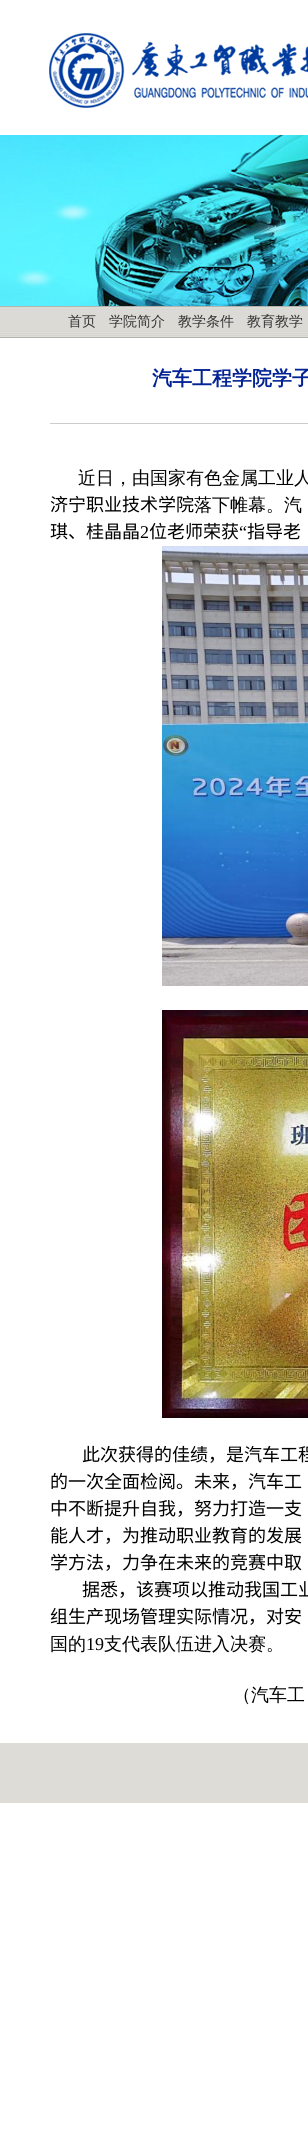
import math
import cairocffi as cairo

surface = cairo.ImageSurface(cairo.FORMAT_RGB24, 308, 2131)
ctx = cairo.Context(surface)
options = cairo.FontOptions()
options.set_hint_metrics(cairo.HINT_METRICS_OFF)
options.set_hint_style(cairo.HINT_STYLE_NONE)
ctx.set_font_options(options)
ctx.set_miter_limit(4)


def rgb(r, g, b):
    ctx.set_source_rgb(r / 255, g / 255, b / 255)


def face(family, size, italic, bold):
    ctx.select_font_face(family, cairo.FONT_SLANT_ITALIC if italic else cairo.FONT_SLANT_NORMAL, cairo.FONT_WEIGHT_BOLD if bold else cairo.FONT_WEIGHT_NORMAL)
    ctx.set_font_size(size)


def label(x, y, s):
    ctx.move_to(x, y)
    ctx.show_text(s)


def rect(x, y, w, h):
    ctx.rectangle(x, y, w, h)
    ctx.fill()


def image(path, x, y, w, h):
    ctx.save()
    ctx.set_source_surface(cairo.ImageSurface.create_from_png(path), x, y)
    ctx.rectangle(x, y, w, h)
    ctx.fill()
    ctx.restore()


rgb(255, 255, 255)
ctx.paint()
image('image0.png', 49, 33, 259, 75)
image('image1.png', 0, 135, 308, 171)
image('image2.png', 0, 306, 308, 32)
face('WenQuanYi Zen Hei Medium', 14, 0, 0)
rgb(51, 51, 51)
label(68, 326, '首页')
label(109, 326, '学院简介')
label(178, 326, '教学条件')
label(247, 326, '教育教学')
face('WenQuanYi Zen Hei', 20, 0, 1)
rgb(3, 35, 148)
label(152, 385, '汽车工程学院学子')
rgb(204, 204, 204)
rect(50, 423, 258, 1)
face('WenQuanYi Zen Hei Medium', 18, 0, 0)
rgb(0, 0, 0)
label(78, 484, '近日，由国家有色金属工业人')
face('Noto Sans CJK SC', 18, 0, 0)
label(50, 511, '济宁职业技术学院')
face('WenQuanYi Zen Hei Medium', 18, 0, 0)
label(194, 511, '落下帷幕。汽')
face('Noto Sans CJK SC', 18, 0, 0)
label(50, 538, '琪、桂晶晶')
face('Liberation Serif', 18, 0, 0)
label(140, 538, '2')
face('Noto Sans CJK SC', 18, 0, 0)
label(149, 538, '位老师荣获')
face('Liberation Serif', 18, 0, 0)
label(239, 538, '“')
face('Noto Sans CJK SC', 18, 0, 0)
label(247, 538, '指导老')
image('image3.png', 162, 546, 146, 440)
image('image4.png', 162, 1010, 146, 408)
label(82, 1461, '此次获得的佳绩，是汽车工程')
label(50, 1488, '的一次全面检阅。未来，汽车工')
label(50, 1515, '中不断提升自我，努力打造一支')
label(50, 1542, '能人才，为推动职业教育的发展')
label(50, 1569, '学方法，力争在未来的竞赛中取')
label(82, 1596, '据悉，该赛项以推动我国工业')
label(50, 1623, '组生产现场管理实际情况，对安')
face('WenQuanYi Zen Hei Medium', 18, 0, 0)
label(50, 1650, '国的')
face('Liberation Serif', 18, 0, 0)
label(86, 1650, '19')
face('WenQuanYi Zen Hei Medium', 18, 0, 0)
label(104, 1650, '支代表队伍进入决赛。')
label(233, 1701, '（汽车工')
rgb(221, 220, 215)
rect(0, 1743, 308, 60)
surface.write_to_png('render.png')
